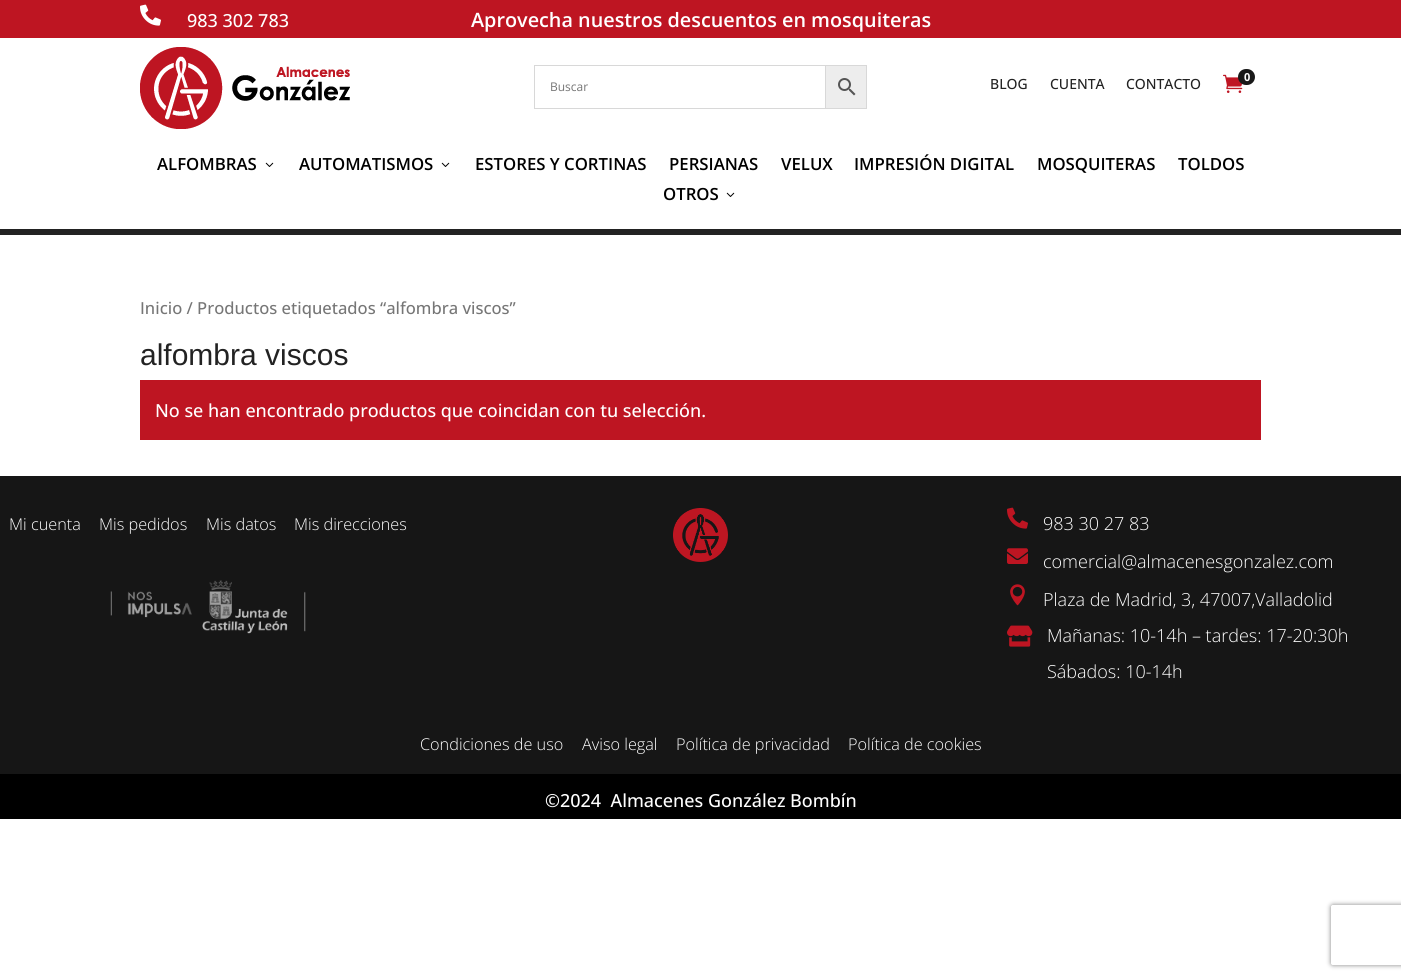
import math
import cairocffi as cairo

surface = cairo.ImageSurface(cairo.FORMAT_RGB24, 1401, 979)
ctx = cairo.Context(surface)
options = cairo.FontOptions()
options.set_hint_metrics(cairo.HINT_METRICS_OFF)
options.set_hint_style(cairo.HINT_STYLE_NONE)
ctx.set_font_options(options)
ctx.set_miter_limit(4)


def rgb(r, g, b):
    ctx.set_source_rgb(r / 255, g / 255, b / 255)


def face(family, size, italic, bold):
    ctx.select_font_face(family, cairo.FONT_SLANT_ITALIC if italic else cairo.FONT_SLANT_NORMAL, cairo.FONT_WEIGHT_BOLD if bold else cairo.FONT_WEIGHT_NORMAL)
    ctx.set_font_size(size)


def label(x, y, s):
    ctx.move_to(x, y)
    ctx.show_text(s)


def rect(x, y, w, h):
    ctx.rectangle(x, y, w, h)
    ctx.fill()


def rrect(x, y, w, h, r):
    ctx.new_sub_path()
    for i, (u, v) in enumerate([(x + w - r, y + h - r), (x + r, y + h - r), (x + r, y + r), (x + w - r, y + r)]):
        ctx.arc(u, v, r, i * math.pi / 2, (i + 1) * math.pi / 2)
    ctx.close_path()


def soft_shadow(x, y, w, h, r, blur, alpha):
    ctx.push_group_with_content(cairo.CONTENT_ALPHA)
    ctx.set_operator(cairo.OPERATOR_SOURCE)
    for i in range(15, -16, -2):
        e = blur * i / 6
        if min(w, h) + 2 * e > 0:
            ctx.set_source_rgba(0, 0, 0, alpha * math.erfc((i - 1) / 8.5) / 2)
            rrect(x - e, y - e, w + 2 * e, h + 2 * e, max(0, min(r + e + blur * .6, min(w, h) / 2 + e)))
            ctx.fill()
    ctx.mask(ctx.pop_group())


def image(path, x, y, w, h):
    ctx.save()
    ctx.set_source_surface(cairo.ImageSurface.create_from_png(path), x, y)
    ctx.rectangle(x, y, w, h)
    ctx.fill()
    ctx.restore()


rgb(255, 255, 255)
ctx.paint()
rgb(190, 21, 34)
rect(0, 0, 1401, 38)
image('image0.png', 140, 4, 21, 22)
face('Open Sans Medium', 18, 0, 0)
rgb(255, 255, 255)
label(187, 27, '983 302 783')
face('Open Sans SemiBold', 19.8, 0, 0)
label(471, 27, 'Aprovecha nuestros descuentos en mosquiteras')
rgb(34, 34, 34)
rect(0, 229, 1401, 6)
image('image1.png', 140, 47, 210, 82)
rgb(237, 237, 237)
ctx.rectangle(825.5, 65.5, 41, 43)
ctx.fill_preserve()
rgb(216, 216, 216)
ctx.set_line_width(1)
ctx.stroke()
ctx.rectangle(534.5, 65.5, 291, 43)
ctx.stroke()
face('Open Sans', 12, 0, 0)
rgb(118, 118, 118)
label(550, 91, 'Buscar')
image('image2.png', 838, 78, 18, 18)
image('image3.png', 1223, 74, 20, 19)
rgb(25, 25, 25)
rrect(1238, 69, 17, 16, 8)
ctx.fill()
face('Open Sans', 11, 0, 1)
rgb(255, 255, 255)
label(1244, 81, '0')
face('Open Sans Medium', 14, 0, 0)
rgb(34, 34, 34)
label(990, 89, 'BLOG')
label(1050, 89, 'CUENTA')
label(1126, 89, 'CONTACTO')
face('Open Sans SemiBold', 16.75, 0, 0)
rgb(0, 0, 0)
label(157, 170, 'ALFOMBRAS')
image('image4.png', 265, 162, 9, 5)
label(299, 170, 'AUTOMATISMOS')
image('image4.png', 441, 162, 9, 5)
label(475, 170, 'ESTORES Y CORTINAS')
label(669, 170, 'PERSIANAS')
label(781, 170, 'VELUX')
label(854, 170, 'IMPRESIÓN DIGITAL')
label(1037, 170, 'MOSQUITERAS')
label(1178, 170, 'TOLDOS')
label(663, 200, 'OTROS')
image('image4.png', 726, 192, 9, 5)
face('Open Sans Medium', 16.6, 0, 0)
rgb(118, 118, 118)
label(140, 314, 'Inicio / Productos etiquetados “alfombra viscos”')
face('Liberation Sans', 30, 0, 0)
rgb(34, 34, 34)
label(140, 365, 'alfombra viscos')
rgb(190, 21, 34)
rect(140, 380, 1121, 60)
face('Open Sans Medium', 18, 0, 0)
rgb(255, 255, 255)
label(155, 417, 'No se han encontrado productos que coincidan con tu selección.')
rgb(22, 22, 22)
rect(0, 476, 1401, 298)
face('Open Sans Light', 16.25, 0, 0)
rgb(255, 255, 255)
label(9, 530, 'Mi cuenta')
label(99, 530, 'Mis pedidos')
label(206, 530, 'Mis datos')
label(294, 530, 'Mis direcciones')
image('image5.png', 110, 580, 196, 54)
image('image6.png', 673, 508, 55, 54)
image('image7.png', 1007, 507, 21, 22)
face('Open Sans Light', 18, 0, 0)
label(1043, 530, '983 30 27 83')
image('image8.png', 1007, 548, 21, 16)
label(1043, 568, 'comercial@almacenesgonzalez.com')
image('image9.png', 1010, 584, 15, 22)
label(1043, 606, 'Plaza de Madrid, 3, 47007,Valladolid')
image('image10.png', 1007, 625, 26, 22)
label(1047, 642, 'Mañanas: 10-14h – tardes: 17-20:30h')
label(1047, 678, 'Sábados: 10-14h')
face('Open Sans Light', 16.25, 0, 0)
label(420, 750, 'Condiciones de uso')
label(582, 750, 'Aviso legal')
label(676, 750, 'Política de privacidad')
label(848, 750, 'Política de cookies')
rgb(0, 0, 0)
rect(0, 774, 1401, 45)
face('Open Sans Medium', 18, 0, 0)
rgb(255, 255, 255)
label(545, 807, '©2024  Almacenes González Bombín')
ctx.save()
ctx.set_fill_rule(cairo.FILL_RULE_EVEN_ODD)
ctx.new_path()
ctx.move_to(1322, 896)
ctx.line_to(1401, 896)
ctx.line_to(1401, 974)
ctx.line_to(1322, 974)
ctx.close_path()
ctx.move_to(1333, 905)
ctx.line_to(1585, 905)
ctx.curve_to(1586, 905, 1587, 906, 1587, 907)
ctx.line_to(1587, 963)
ctx.curve_to(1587, 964, 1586, 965, 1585, 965)
ctx.line_to(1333, 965)
ctx.curve_to(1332, 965, 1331, 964, 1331, 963)
ctx.line_to(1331, 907)
ctx.curve_to(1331, 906, 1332, 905, 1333, 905)
ctx.close_path()
ctx.clip()
rgb(128, 128, 128)
soft_shadow(1331, 905, 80, 60, 2, 2.5, 1)
ctx.restore()
surface.write_to_png('render.png')
